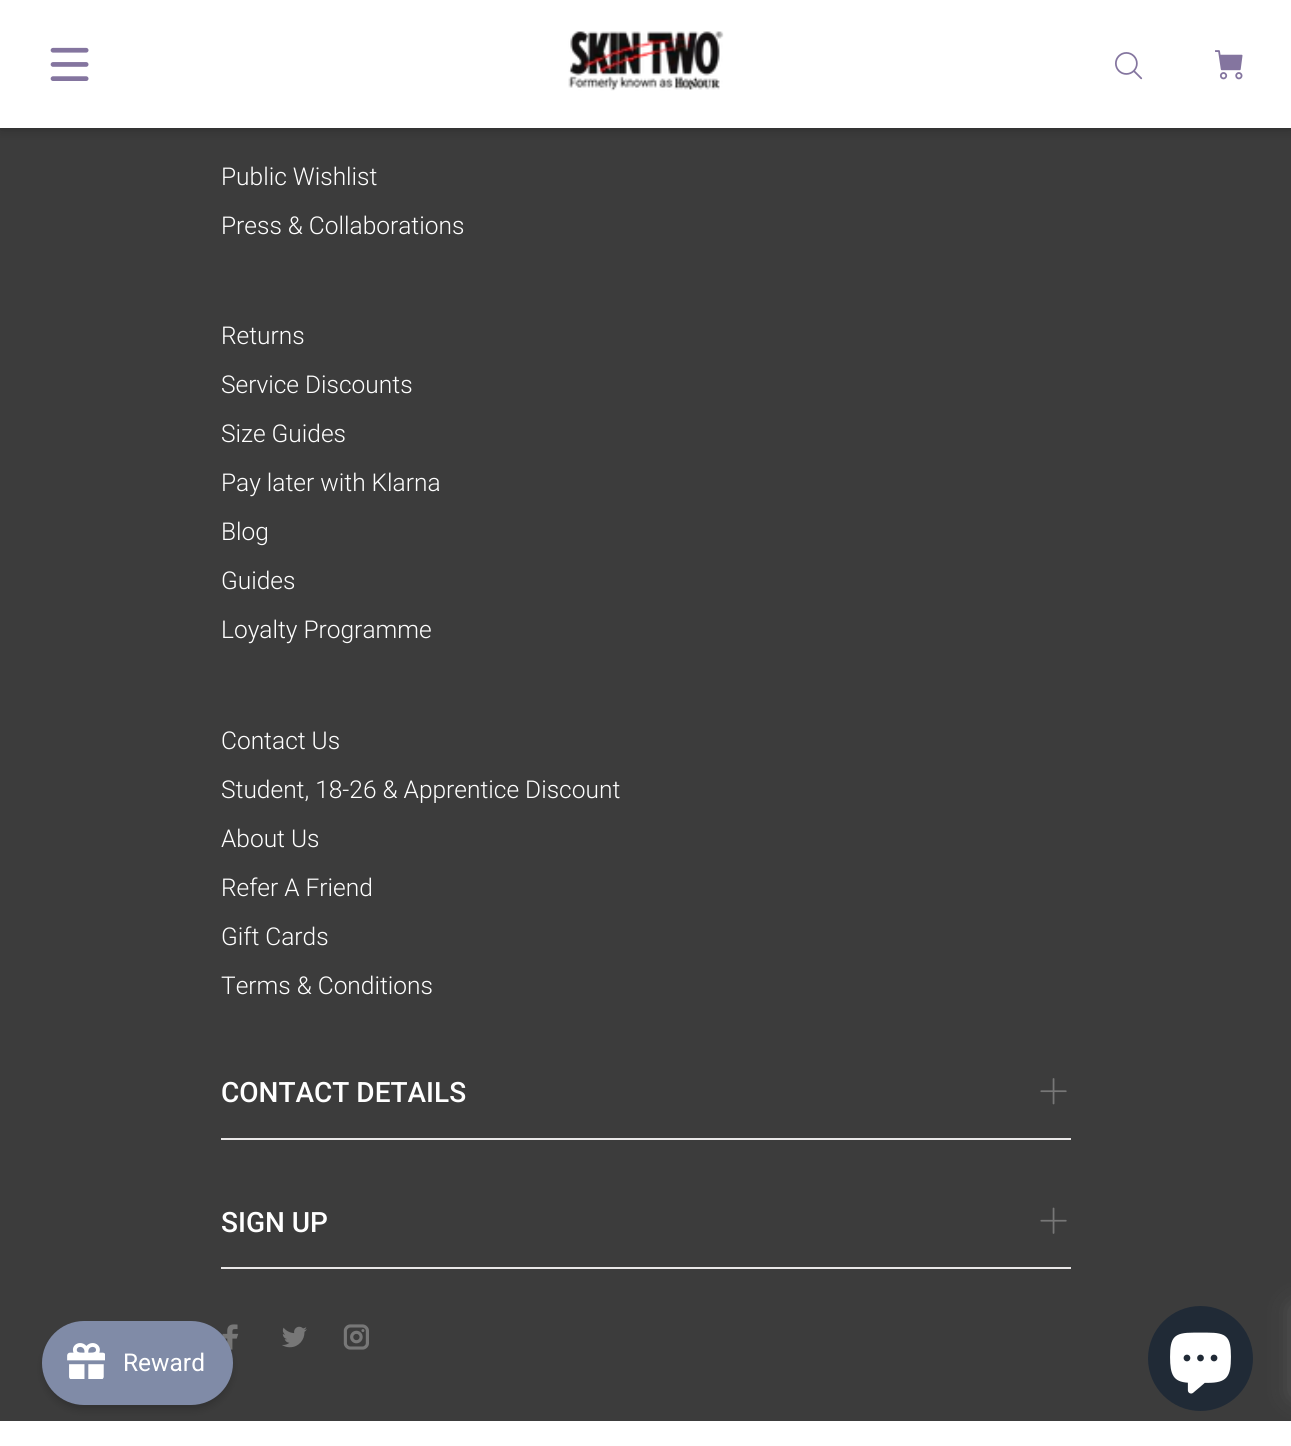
import math
import cairocffi as cairo

surface = cairo.ImageSurface(cairo.FORMAT_RGB24, 1291, 1446)
ctx = cairo.Context(surface)
options = cairo.FontOptions()
options.set_hint_metrics(cairo.HINT_METRICS_OFF)
options.set_hint_style(cairo.HINT_STYLE_NONE)
ctx.set_font_options(options)
ctx.set_miter_limit(4)


def rgb(r, g, b):
    ctx.set_source_rgb(r / 255, g / 255, b / 255)


def face(family, size, italic, bold):
    ctx.select_font_face(family, cairo.FONT_SLANT_ITALIC if italic else cairo.FONT_SLANT_NORMAL, cairo.FONT_WEIGHT_BOLD if bold else cairo.FONT_WEIGHT_NORMAL)
    ctx.set_font_size(size)


def label(x, y, s):
    ctx.move_to(x, y)
    ctx.show_text(s)


def rect(x, y, w, h):
    ctx.rectangle(x, y, w, h)
    ctx.fill()


def rrect(x, y, w, h, r):
    ctx.new_sub_path()
    for i, (u, v) in enumerate([(x + w - r, y + h - r), (x + r, y + h - r), (x + r, y + r), (x + w - r, y + r)]):
        ctx.arc(u, v, r, i * math.pi / 2, (i + 1) * math.pi / 2)
    ctx.close_path()


def soft_shadow(x, y, w, h, r, blur, alpha):
    ctx.push_group_with_content(cairo.CONTENT_ALPHA)
    ctx.set_operator(cairo.OPERATOR_SOURCE)
    for i in range(15, -16, -2):
        e = blur * i / 6
        if min(w, h) + 2 * e > 0:
            ctx.set_source_rgba(0, 0, 0, alpha * math.erfc((i - 1) / 8.5) / 2)
            rrect(x - e, y - e, w + 2 * e, h + 2 * e, max(0, min(r + e + blur * .6, min(w, h) / 2 + e)))
            ctx.fill()
    ctx.mask(ctx.pop_group())


def image(path, x, y, w, h):
    ctx.save()
    ctx.set_source_surface(cairo.ImageSurface.create_from_png(path), x, y)
    ctx.rectangle(x, y, w, h)
    ctx.fill()
    ctx.restore()


rgb(60, 60, 60)
ctx.paint()
rgb(0, 0, 0)
soft_shadow(0, 0, 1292, 128, 0, 7, 0.3)
rgb(255, 255, 255)
rect(0, 0, 1291, 128)
image('image0.png', 50, 47, 39, 34)
image('image1.png', 568, 31, 156, 60)
image('image2.png', 1115, 52, 28, 28)
image('image3.png', 1215, 50, 28, 30)
face('Roboto Light', 24.5, 0, 0)
label(221, 185, 'Public Wishlist')
label(221, 234, 'Press & Collaborations')
label(221, 344, 'Returns')
label(221, 393, 'Service Discounts')
label(221, 442, 'Size Guides')
label(221, 491, 'Pay later with Klarna')
label(221, 540, 'Blog')
label(221, 589, 'Guides')
label(221, 638, 'Loyalty Programme')
label(221, 749, 'Contact Us')
label(221, 798, 'Student, 18-26 & Apprentice Discount')
label(221, 847, 'About Us')
label(221, 896, 'Refer A Friend')
label(221, 945, 'Gift Cards')
label(221, 994, 'Terms & Conditions')
rgb(233, 231, 231)
rect(221, 1138, 850, 2)
face('Roboto Medium', 28, 0, 0)
rgb(255, 255, 255)
label(221, 1102, 'CONTACT DETAILS')
image('image4.png', 1040, 1078, 27, 27)
rgb(233, 231, 231)
rect(221, 1267, 850, 2)
rgb(255, 255, 255)
label(221, 1232, 'SIGN UP')
image('image5.png', 1040, 1207, 27, 27)
image('image6.png', 222, 1324, 17, 26)
image('image7.png', 282, 1326, 25, 22)
image('image8.png', 343, 1324, 26, 26)
rect(0, 1421, 1291, 25)
rgb(0, 0, 0)
soft_shadow(44, 1328, 187, 81, 40.5, 4.5, 0.2)
rgb(32, 42, 54)
ctx.arc(1200.5, 1358.5, 52.5, 0, 2 * math.pi)
ctx.fill()
image('image9.png', 1170, 1332, 61, 62)
rgb(117, 117, 117)
soft_shadow(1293, 1307, 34, 88, 0, 12, 0.5)
rgb(128, 139, 167)
rrect(42, 1321, 191, 84, 42)
ctx.fill()
image('image10.png', 67, 1343, 38, 36)
face('Roboto', 24.5, 0, 0)
rgb(255, 255, 255)
label(123, 1371, 'Reward')
surface.write_to_png('render.png')
